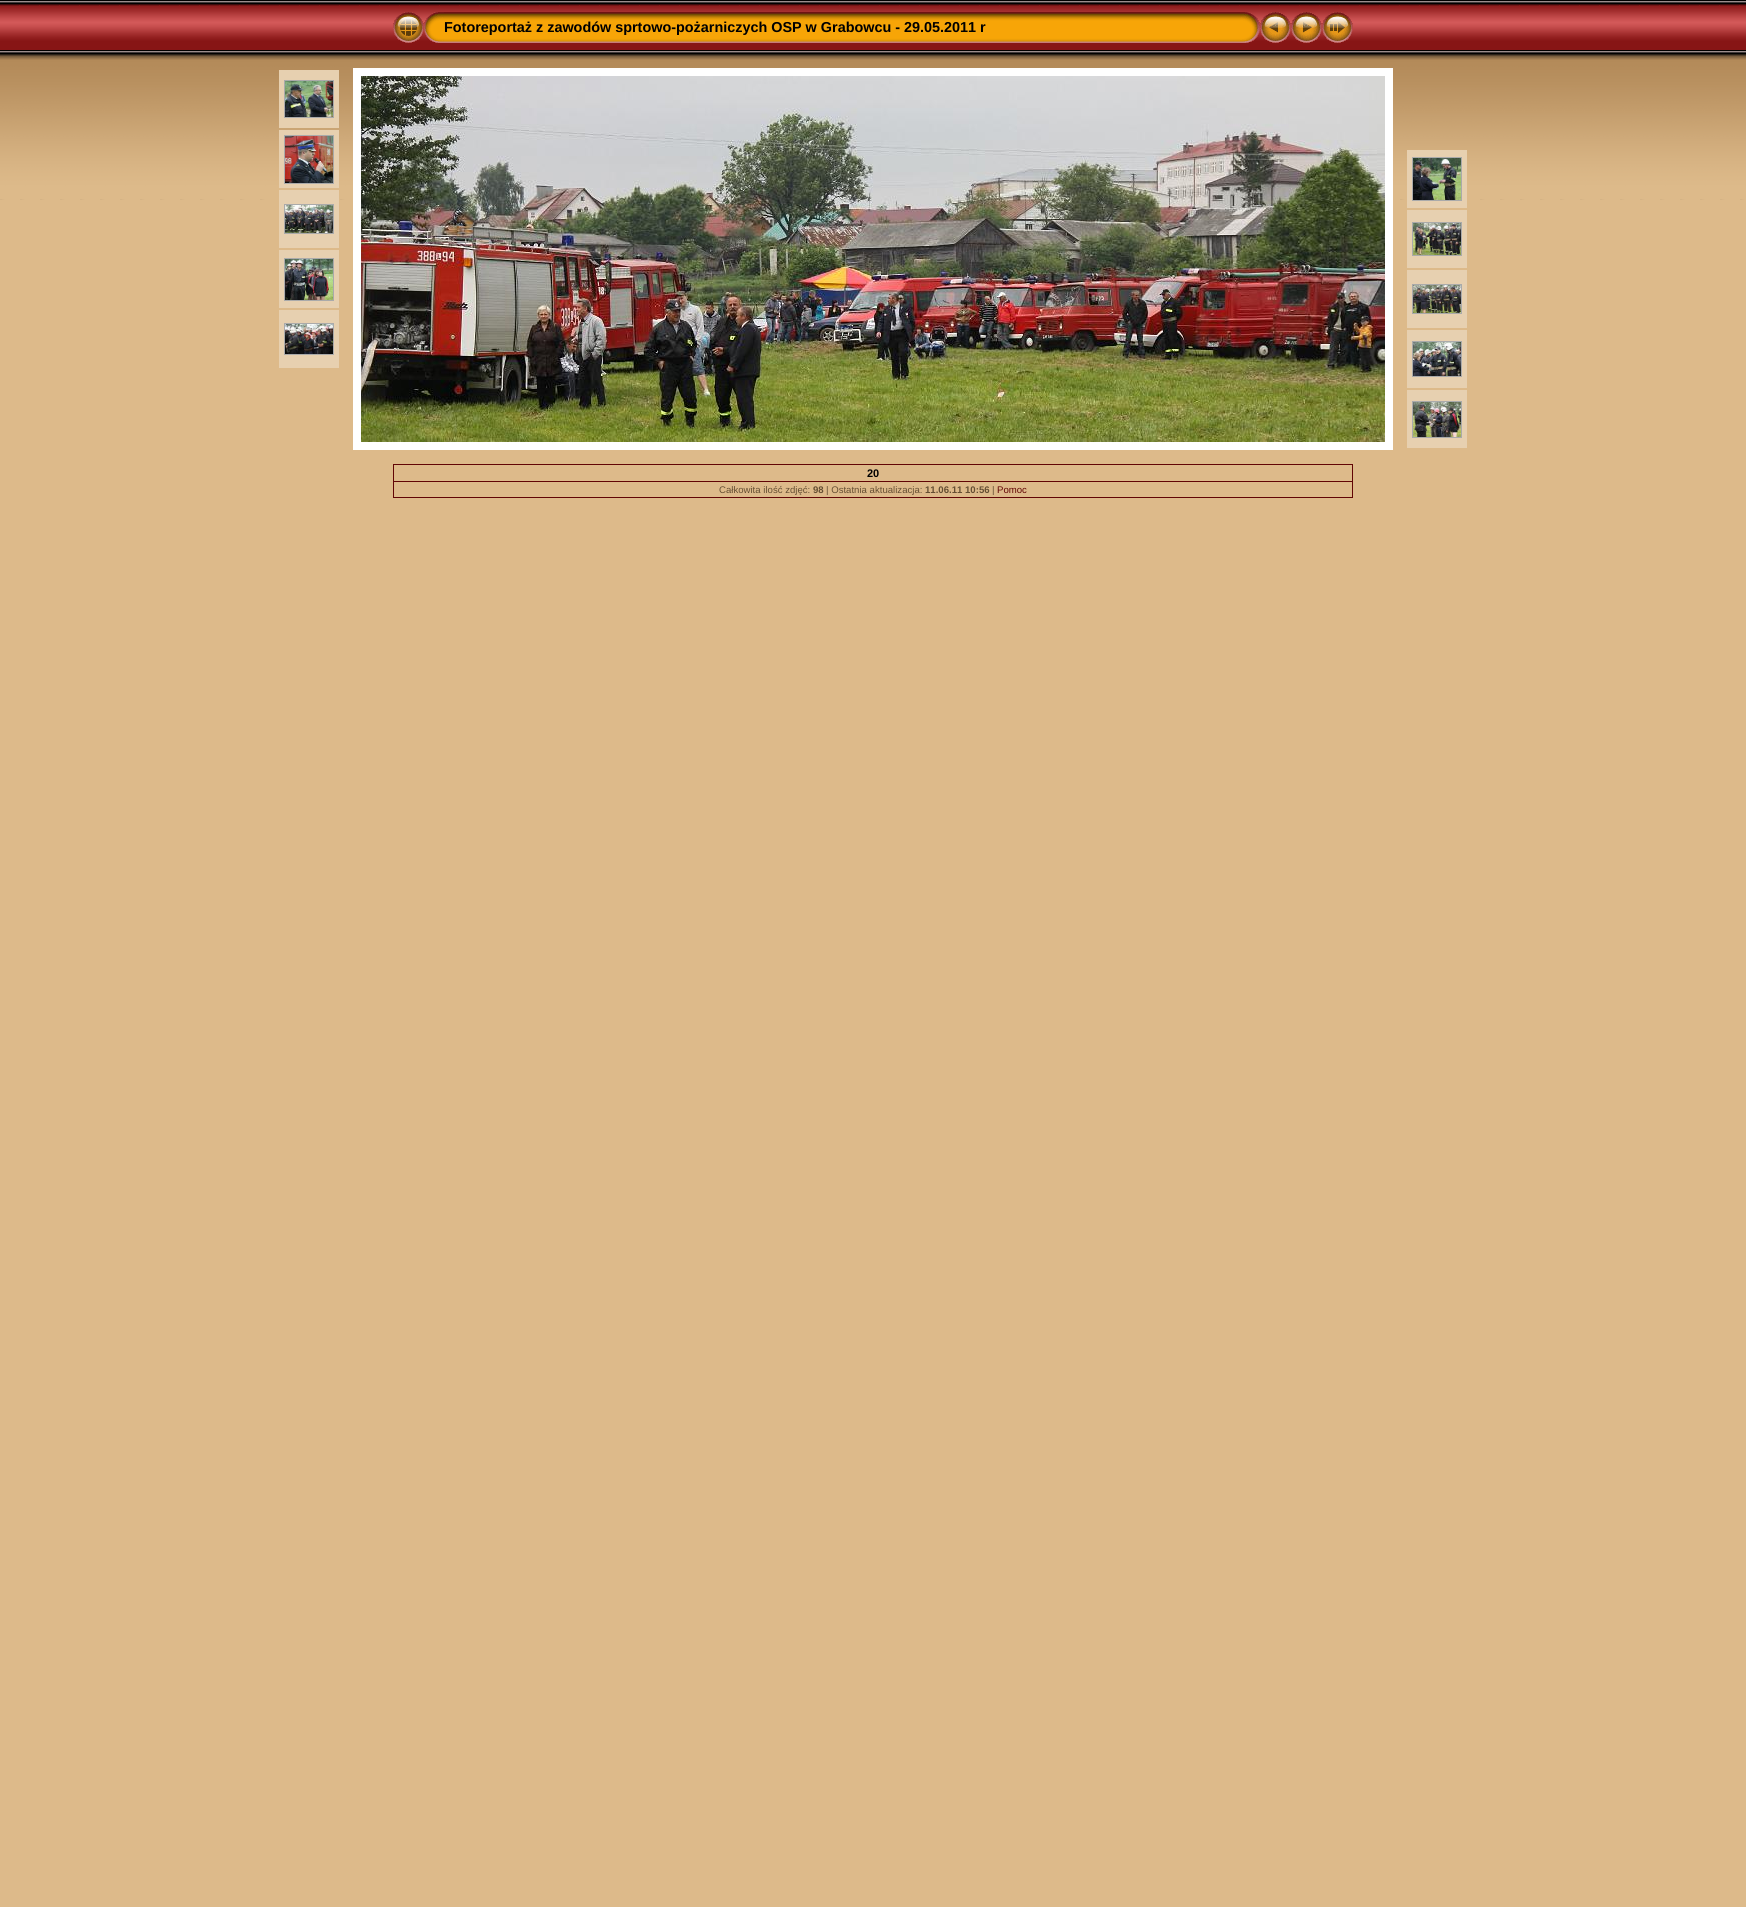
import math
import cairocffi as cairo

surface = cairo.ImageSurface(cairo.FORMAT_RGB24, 1746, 1907)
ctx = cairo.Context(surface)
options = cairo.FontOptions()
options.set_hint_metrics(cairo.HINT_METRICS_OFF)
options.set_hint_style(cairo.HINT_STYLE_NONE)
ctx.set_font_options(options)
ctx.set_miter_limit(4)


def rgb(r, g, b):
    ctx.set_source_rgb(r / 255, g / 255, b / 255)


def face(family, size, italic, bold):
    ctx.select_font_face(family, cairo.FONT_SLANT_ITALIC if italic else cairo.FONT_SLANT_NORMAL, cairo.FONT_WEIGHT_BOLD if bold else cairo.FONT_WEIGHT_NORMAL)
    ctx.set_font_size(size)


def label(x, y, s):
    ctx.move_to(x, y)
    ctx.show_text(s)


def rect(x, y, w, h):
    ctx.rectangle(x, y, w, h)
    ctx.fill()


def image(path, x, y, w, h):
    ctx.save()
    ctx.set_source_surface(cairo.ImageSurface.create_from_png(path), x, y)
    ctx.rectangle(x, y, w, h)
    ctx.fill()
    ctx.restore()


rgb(221, 186, 138)
ctx.paint()
image('image0.png', 0, 0, 1746, 200)
image('image1.png', 393, 12, 31, 31)
image('image2.png', 424, 12, 20, 31)
image('image3.png', 444, 12, 796, 31)
face('Liberation Sans', 14.4, 0, 1)
rgb(0, 0, 0)
label(444, 32, 'Fotoreportaż z zawodów sprtowo-pożarniczych OSP w Grabowcu - 29.05.2011 r')
image('image4.png', 1240, 12, 20, 31)
image('image5.png', 1260, 12, 31, 31)
image('image6.png', 1291, 12, 31, 31)
image('image7.png', 1322, 12, 31, 31)
rgb(231, 208, 176)
rect(279, 70, 60, 58)
ctx.rectangle(284.5, 80.5, 49, 37)
rgb(170, 170, 170)
ctx.set_line_width(1)
ctx.stroke()
image('image8.png', 285, 81, 48, 36)
rgb(231, 208, 176)
rect(279, 130, 60, 58)
ctx.rectangle(284.5, 135.5, 49, 48)
rgb(170, 170, 170)
ctx.stroke()
image('image9.png', 285, 136, 48, 47)
rgb(231, 208, 176)
rect(279, 190, 60, 58)
ctx.rectangle(284.5, 204.5, 49, 29)
rgb(170, 170, 170)
ctx.stroke()
image('image10.png', 285, 205, 48, 28)
rgb(231, 208, 176)
rect(279, 250, 60, 58)
ctx.rectangle(284.5, 258.5, 49, 42)
rgb(170, 170, 170)
ctx.stroke()
image('image11.png', 285, 259, 48, 41)
rgb(231, 208, 176)
rect(279, 310, 60, 58)
ctx.rectangle(284.5, 323.5, 49, 31)
rgb(170, 170, 170)
ctx.stroke()
image('image12.png', 285, 324, 48, 30)
ctx.rectangle(357, 72, 1032, 374)
rgb(255, 255, 255)
ctx.set_line_width(8)
ctx.stroke()
image('image13.png', 361, 76, 1024, 366)
rgb(231, 208, 176)
rect(1407, 150, 60, 58)
ctx.rectangle(1412.5, 157.5, 49, 43)
rgb(170, 170, 170)
ctx.set_line_width(1)
ctx.stroke()
image('image14.png', 1413, 158, 48, 42)
rgb(231, 208, 176)
rect(1407, 210, 60, 58)
ctx.rectangle(1412.5, 222.5, 49, 33)
rgb(170, 170, 170)
ctx.stroke()
image('image15.png', 1413, 223, 48, 32)
rgb(231, 208, 176)
rect(1407, 270, 60, 58)
ctx.rectangle(1412.5, 284.5, 49, 29)
rgb(170, 170, 170)
ctx.stroke()
image('image16.png', 1413, 285, 48, 28)
rgb(231, 208, 176)
rect(1407, 330, 60, 58)
ctx.rectangle(1412.5, 341.5, 49, 35)
rgb(170, 170, 170)
ctx.stroke()
image('image17.png', 1413, 342, 48, 34)
rgb(231, 208, 176)
rect(1407, 390, 60, 58)
ctx.rectangle(1412.5, 401.5, 49, 36)
rgb(170, 170, 170)
ctx.stroke()
image('image18.png', 1413, 402, 48, 35)
rgb(97, 5, 5)
rect(393, 464, 960, 1)
rect(1352, 464, 1, 34)
rect(393, 497, 960, 1)
rect(393, 464, 1, 34)
face('Liberation Sans', 11, 0, 1)
rgb(0, 0, 0)
label(867, 477, '20')
rgb(97, 5, 5)
rect(393, 481, 960, 1)
face('Liberation Sans', 9.6, 0, 0)
rgb(100, 78, 51)
label(719, 493, 'Całkowita ilość zdjęć:')
face('Liberation Sans', 9.6, 0, 1)
label(813, 493, '98')
face('Liberation Sans', 9.6, 0, 0)
label(826, 493, '| Ostatnia aktualizacja:')
face('Liberation Sans', 9.6, 0, 1)
label(925, 493, '11.06.11 10:56')
face('Liberation Sans', 9.6, 0, 0)
label(992, 493, '|')
rgb(97, 5, 5)
label(997, 493, 'Pomoc')
surface.write_to_png('render.png')
